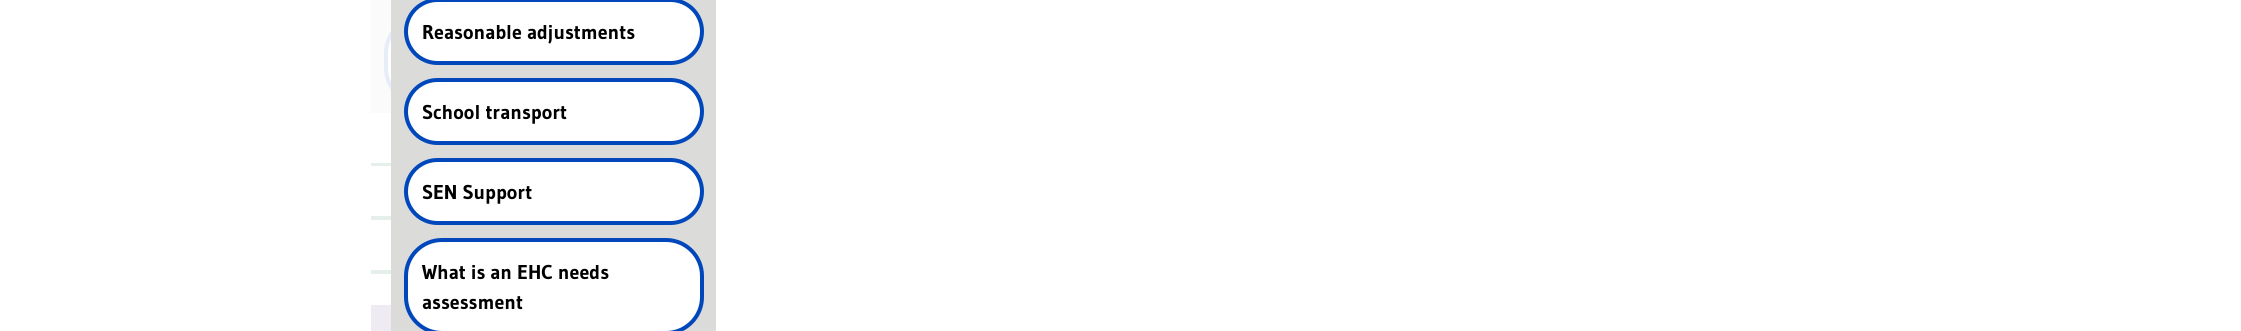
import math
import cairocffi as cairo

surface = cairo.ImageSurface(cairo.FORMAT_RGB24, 2241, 331)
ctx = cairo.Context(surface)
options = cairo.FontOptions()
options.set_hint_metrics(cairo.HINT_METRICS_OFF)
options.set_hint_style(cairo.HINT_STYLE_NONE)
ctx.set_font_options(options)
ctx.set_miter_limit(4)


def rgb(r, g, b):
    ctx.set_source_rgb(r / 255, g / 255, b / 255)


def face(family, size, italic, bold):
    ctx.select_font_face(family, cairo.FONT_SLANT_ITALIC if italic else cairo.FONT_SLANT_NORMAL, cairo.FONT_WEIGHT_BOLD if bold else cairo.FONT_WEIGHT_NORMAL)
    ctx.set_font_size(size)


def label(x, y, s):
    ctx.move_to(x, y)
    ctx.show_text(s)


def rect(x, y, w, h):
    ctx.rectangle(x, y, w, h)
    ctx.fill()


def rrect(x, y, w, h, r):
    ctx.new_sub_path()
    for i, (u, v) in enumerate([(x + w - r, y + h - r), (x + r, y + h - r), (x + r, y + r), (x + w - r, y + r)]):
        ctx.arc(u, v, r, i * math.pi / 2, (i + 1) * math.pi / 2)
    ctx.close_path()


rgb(255, 255, 255)
ctx.paint()
rgb(251, 251, 251)
rect(371, 0, 20, 113)
rgb(255, 255, 255)
rrect(386, 17, 316, 87, 36)
ctx.fill_preserve()
rgb(230, 237, 248)
ctx.set_line_width(4)
ctx.stroke()
rgb(230, 240, 235)
rect(371, 163, 20, 3)
rect(371, 216, 20, 4)
rect(371, 270, 20, 4)
rgb(239, 235, 243)
rect(371, 305, 20, 26)
rgb(219, 219, 218)
rect(391, 0, 325, 331)
rgb(255, 255, 255)
rrect(406, 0, 296, 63, 31.5)
ctx.fill_preserve()
rgb(0, 71, 187)
ctx.stroke()
face('Gudea', 20, 0, 1)
rgb(0, 0, 0)
label(422, 39, 'Reasonable adjustments')
rgb(255, 255, 255)
rrect(406, 80, 296, 63, 31.5)
ctx.fill_preserve()
rgb(0, 71, 187)
ctx.stroke()
rgb(0, 0, 0)
label(422, 119, 'School transport')
rgb(255, 255, 255)
rrect(406, 160, 296, 63, 31.5)
ctx.fill_preserve()
rgb(0, 71, 187)
ctx.stroke()
rgb(0, 0, 0)
label(422, 199, 'SEN Support')
rgb(255, 255, 255)
rrect(406, 240, 296, 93, 36)
ctx.fill_preserve()
rgb(0, 71, 187)
ctx.stroke()
rgb(0, 0, 0)
label(422, 279, 'What is an EHC needs')
label(422, 309, 'assessment')
surface.write_to_png('render.png')
